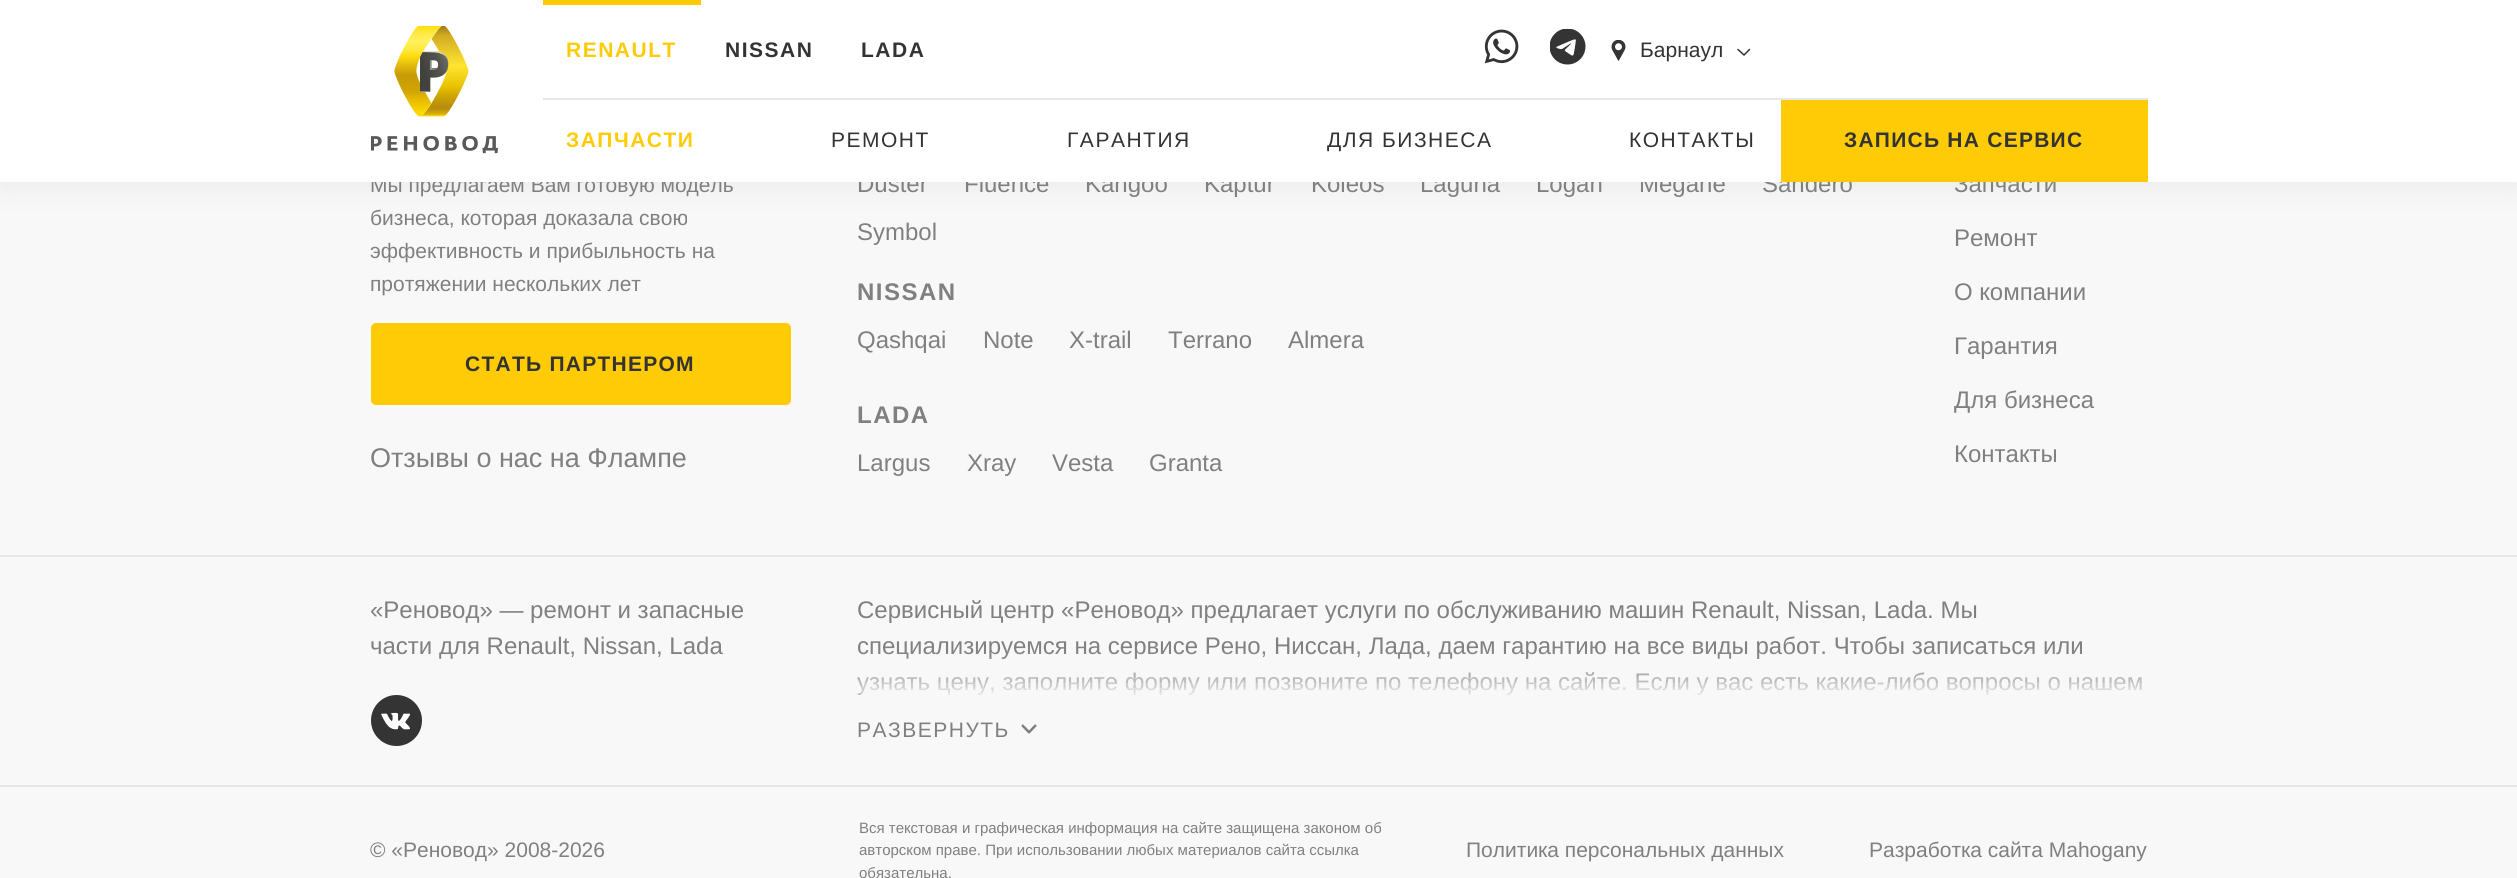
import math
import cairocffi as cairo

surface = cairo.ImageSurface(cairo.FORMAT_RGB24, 2517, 878)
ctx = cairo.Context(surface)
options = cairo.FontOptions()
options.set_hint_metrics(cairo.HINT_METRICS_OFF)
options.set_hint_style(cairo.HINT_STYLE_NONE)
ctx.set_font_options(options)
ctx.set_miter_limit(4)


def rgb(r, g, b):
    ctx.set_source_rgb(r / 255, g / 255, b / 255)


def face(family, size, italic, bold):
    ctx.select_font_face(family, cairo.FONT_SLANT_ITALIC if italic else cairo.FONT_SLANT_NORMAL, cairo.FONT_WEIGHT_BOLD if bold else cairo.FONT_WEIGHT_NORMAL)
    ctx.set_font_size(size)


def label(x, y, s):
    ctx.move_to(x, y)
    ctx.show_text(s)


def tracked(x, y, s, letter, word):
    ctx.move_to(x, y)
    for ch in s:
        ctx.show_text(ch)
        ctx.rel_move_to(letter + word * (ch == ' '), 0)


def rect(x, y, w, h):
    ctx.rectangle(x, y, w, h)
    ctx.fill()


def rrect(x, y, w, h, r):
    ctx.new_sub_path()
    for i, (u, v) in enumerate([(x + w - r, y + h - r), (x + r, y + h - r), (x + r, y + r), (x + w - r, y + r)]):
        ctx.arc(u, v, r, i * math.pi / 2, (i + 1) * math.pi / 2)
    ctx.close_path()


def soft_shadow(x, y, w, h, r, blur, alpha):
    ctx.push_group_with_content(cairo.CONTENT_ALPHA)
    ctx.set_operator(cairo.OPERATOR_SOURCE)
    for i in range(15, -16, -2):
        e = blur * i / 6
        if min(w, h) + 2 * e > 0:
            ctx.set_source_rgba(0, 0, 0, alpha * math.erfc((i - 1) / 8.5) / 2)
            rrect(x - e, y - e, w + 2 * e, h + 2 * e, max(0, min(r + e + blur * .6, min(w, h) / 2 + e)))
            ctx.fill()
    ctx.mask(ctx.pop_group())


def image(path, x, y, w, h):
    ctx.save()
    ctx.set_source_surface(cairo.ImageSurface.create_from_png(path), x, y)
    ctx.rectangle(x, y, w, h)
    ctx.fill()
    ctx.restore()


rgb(248, 248, 248)
ctx.paint()
rgb(0, 0, 0)
soft_shadow(0, 8, 2517, 181, 0, 15, 0.05)
face('Liberation Sans', 21, 0, 0)
rgb(128, 128, 128)
label(370, 192, 'Мы предлагаем Вам готовую модель')
face('Liberation Sans', 24, 0, 0)
label(857, 192, 'Duster')
label(964, 192, 'Fluence')
label(1085, 192, 'Kangoo')
label(1204, 192, 'Kaptur')
label(1311, 192, 'Koleos')
label(1420, 192, 'Laguna')
label(1536, 192, 'Logan')
label(1639, 192, 'Megane')
label(1762, 192, 'Sandero')
label(1954, 192, 'Запчасти')
rgb(255, 255, 255)
rect(0, 0, 2517, 182)
image('image0.png', 371, 26, 127, 128)
rgb(255, 203, 6)
rect(543, 0, 158, 5)
face('Liberation Sans', 21, 0, 1)
tracked(566, 57, 'RENAULT', 1.5, 0)
rgb(51, 51, 51)
tracked(725, 57, 'NISSAN', 1.5, 0)
tracked(861, 57, 'LADA', 1.5, 0)
image('image1.png', 1484, 29, 35, 35)
image('image2.png', 1550, 29, 36, 36)
image('image3.png', 1611, 40, 15, 21)
face('Liberation Sans', 21, 0, 0)
label(1640, 57, 'Барнаул')
ctx.new_path()
ctx.move_to(1738, 49.5)
ctx.line_to(1744, 55)
ctx.line_to(1749.5, 49.5)
rgb(52, 52, 52)
ctx.set_line_width(1.5)
ctx.set_line_cap(cairo.LINE_CAP_ROUND)
ctx.stroke()
rgb(231, 231, 231)
rect(543, 98, 1605, 2)
face('Liberation Sans', 21, 0, 1)
rgb(255, 203, 6)
tracked(566, 147, 'ЗАПЧАСТИ', 1.5, 0)
face('Liberation Sans', 21, 0, 0)
rgb(51, 51, 51)
tracked(831, 147, 'РЕМОНТ', 1.5, 0)
tracked(1067, 147, 'ГАРАНТИЯ', 1.5, 0)
tracked(1327, 147, 'ДЛЯ БИЗНЕСА', 1.5, 0)
tracked(1629, 147, 'КОНТАКТЫ', 1.5, 0)
rgb(255, 203, 6)
rect(1781, 100, 367, 82)
face('Liberation Sans', 21, 0, 1)
rgb(51, 51, 51)
tracked(1844, 147, 'ЗАПИСЬ НА СЕРВИС', 1.25, 0)
face('Liberation Sans', 21, 0, 0)
rgb(128, 128, 128)
label(370, 225, 'бизнеса, которая доказала свою')
label(370, 258, 'эффективность и прибыльность на')
label(370, 291, 'протяжении нескольких лет')
rgb(255, 203, 6)
rrect(372, 324, 418, 80, 4)
ctx.fill_preserve()
ctx.set_line_width(2)
ctx.set_line_cap(cairo.LINE_CAP_BUTT)
ctx.stroke()
face('Liberation Sans', 21, 0, 1)
rgb(51, 51, 51)
tracked(465, 371, 'СТАТЬ ПАРТНЕРОМ', 1.25, 0)
face('Liberation Sans', 27, 0, 0)
rgb(128, 128, 128)
label(370, 467, 'Отзывы о нас на Флампе')
face('Liberation Sans', 24, 0, 0)
label(857, 240, 'Symbol')
face('Liberation Sans', 24, 0, 1)
tracked(857, 300, 'NISSAN', 1.5, 0)
face('Liberation Sans', 24, 0, 0)
label(857, 348, 'Qashqai')
label(983, 348, 'Note')
label(1069, 348, 'X-trail')
label(1168, 348, 'Terrano')
label(1288, 348, 'Almera')
face('Liberation Sans', 24, 0, 1)
tracked(857, 423, 'LADA', 1.5, 0)
face('Liberation Sans', 24, 0, 0)
label(857, 471, 'Largus')
label(967, 471, 'Xray')
label(1052, 471, 'Vesta')
label(1149, 471, 'Granta')
label(1954, 246, 'Ремонт')
label(1954, 300, 'О компании')
label(1954, 354, 'Гарантия')
label(1954, 408, 'Для бизнеса')
label(1954, 462, 'Контакты')
rgb(231, 231, 231)
rect(0, 555, 2517, 2)
rgb(128, 128, 128)
label(370, 618, '«Реновод» — ремонт и запасные')
label(370, 654, 'части для Renault, Nissan, Lada')
rgb(52, 52, 52)
ctx.new_path()
ctx.arc(396.5, 720.5, 25.5, 0, 2 * math.pi)
ctx.fill()
image('image4.png', 381, 712, 29, 18)
rgb(128, 128, 128)
label(857, 618, 'Сервисный центр «Реновод» предлагает услуги по обслуживанию машин Renault, Nissan, Lada. Мы')
label(857, 654, 'специализируемся на сервисе Рено, Ниссан, Лада, даем гарантию на все виды работ. Чтобы записаться или')
label(857, 690, 'узнать цену, заполните форму или позвоните по телефону на сайте. Если у вас есть какие-либо вопросы о нашем')
ctx.save()
ctx.set_fill_rule(cairo.FILL_RULE_EVEN_ODD)
ctx.new_path()
ctx.move_to(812, 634)
ctx.line_to(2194, 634)
ctx.line_to(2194, 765)
ctx.line_to(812, 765)
ctx.close_path()
ctx.move_to(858, 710)
ctx.line_to(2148, 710)
ctx.line_to(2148, 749)
ctx.line_to(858, 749)
ctx.close_path()
ctx.clip()
rgb(248, 248, 248)
soft_shadow(858, 680, 1290, 39, 0, 15, 1)
ctx.restore()
face('Liberation Sans', 21, 0, 0)
tracked(857, 737, 'РАЗВЕРНУТЬ', 1.5, 0)
image('image5.png', 1021, 724, 16, 10)
rgb(231, 231, 231)
rect(0, 785, 2517, 2)
rgb(128, 128, 128)
label(370, 857, '© «Реновод» 2008-2026')
face('Liberation Sans', 15, 0, 0)
label(859, 833, 'Вся текстовая и графическая информация на сайте защищена законом об')
label(859, 855, 'авторском праве. При использовании любых материалов сайта ссылка')
label(859, 878, 'обязательна.')
face('Liberation Sans', 21, 0, 0)
label(1466, 857, 'Политика персональных данных')
label(1869, 857, 'Разработка сайта Mahogany')
surface.write_to_png('render.png')
